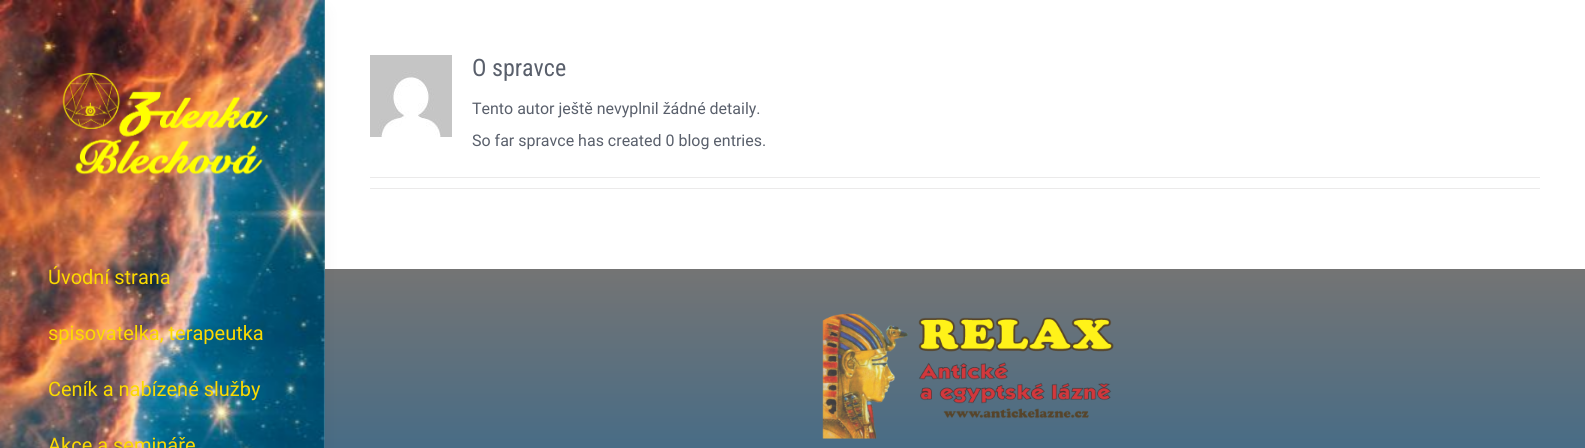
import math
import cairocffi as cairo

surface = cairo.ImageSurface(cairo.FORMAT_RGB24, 1585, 448)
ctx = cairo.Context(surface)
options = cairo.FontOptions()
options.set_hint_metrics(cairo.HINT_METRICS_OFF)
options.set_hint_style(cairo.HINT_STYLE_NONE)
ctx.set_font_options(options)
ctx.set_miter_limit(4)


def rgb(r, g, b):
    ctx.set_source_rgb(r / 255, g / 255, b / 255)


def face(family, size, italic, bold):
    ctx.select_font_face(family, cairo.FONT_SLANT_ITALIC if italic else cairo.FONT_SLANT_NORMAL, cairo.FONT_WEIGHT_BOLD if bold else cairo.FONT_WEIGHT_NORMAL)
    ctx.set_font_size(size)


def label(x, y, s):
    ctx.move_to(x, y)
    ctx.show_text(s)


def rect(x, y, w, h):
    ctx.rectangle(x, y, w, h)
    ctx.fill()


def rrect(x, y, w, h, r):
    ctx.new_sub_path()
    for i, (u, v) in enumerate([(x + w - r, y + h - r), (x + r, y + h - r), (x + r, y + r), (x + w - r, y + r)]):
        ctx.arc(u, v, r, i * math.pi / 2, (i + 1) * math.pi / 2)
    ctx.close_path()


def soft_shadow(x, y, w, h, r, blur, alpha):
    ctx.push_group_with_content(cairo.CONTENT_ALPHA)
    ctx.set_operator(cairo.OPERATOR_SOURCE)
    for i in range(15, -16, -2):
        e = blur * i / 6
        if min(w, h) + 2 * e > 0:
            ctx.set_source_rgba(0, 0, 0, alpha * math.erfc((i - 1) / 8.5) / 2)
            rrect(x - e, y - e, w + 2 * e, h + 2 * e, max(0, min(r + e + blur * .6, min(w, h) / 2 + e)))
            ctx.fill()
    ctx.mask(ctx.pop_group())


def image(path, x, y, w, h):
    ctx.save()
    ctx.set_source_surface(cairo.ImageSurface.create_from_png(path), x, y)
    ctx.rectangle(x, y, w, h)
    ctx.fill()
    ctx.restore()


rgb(255, 255, 255)
ctx.paint()
image('image0.png', 370, 55, 82, 82)
face('Roboto Condensed', 24, 0, 0)
rgb(89, 95, 107)
label(472, 76, 'O spravce')
face('Roboto', 16, 0, 0)
label(472, 114, 'Tento autor ještě nevyplnil žádné detaily.')
label(472, 146, 'So far spravce has created 0 blog entries.')
rgb(235, 234, 234)
rect(370, 177, 1170, 1)
rect(370, 188, 1170, 1)
gradient = cairo.LinearGradient(955, 269, 955, 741)
gradient.add_color_stop_rgba(0, 0.455, 0.455, 0.455, 1)
gradient.add_color_stop_rgba(1, 0, 0.373, 0.639, 1)
ctx.set_source(gradient)
rect(325, 269, 1260, 179)
rgb(0, 0, 0)
soft_shadow(20, 12, 301, 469, 0, 11, 0.07)
image('image1.png', 0, 0, 325, 448)
image('image2.png', 62, 73, 207, 102)
face('Roboto', 20, 0, 0)
rgb(252, 218, 0)
label(48, 284, 'Úvodní strana')
label(48, 340, 'spisovatelka, terapeutka')
label(48, 396, 'Ceník a nabízené služby')
label(48, 452, 'Akce a semináře')
image('image3.png', 822, 313, 292, 126)
surface.write_to_png('render.png')
